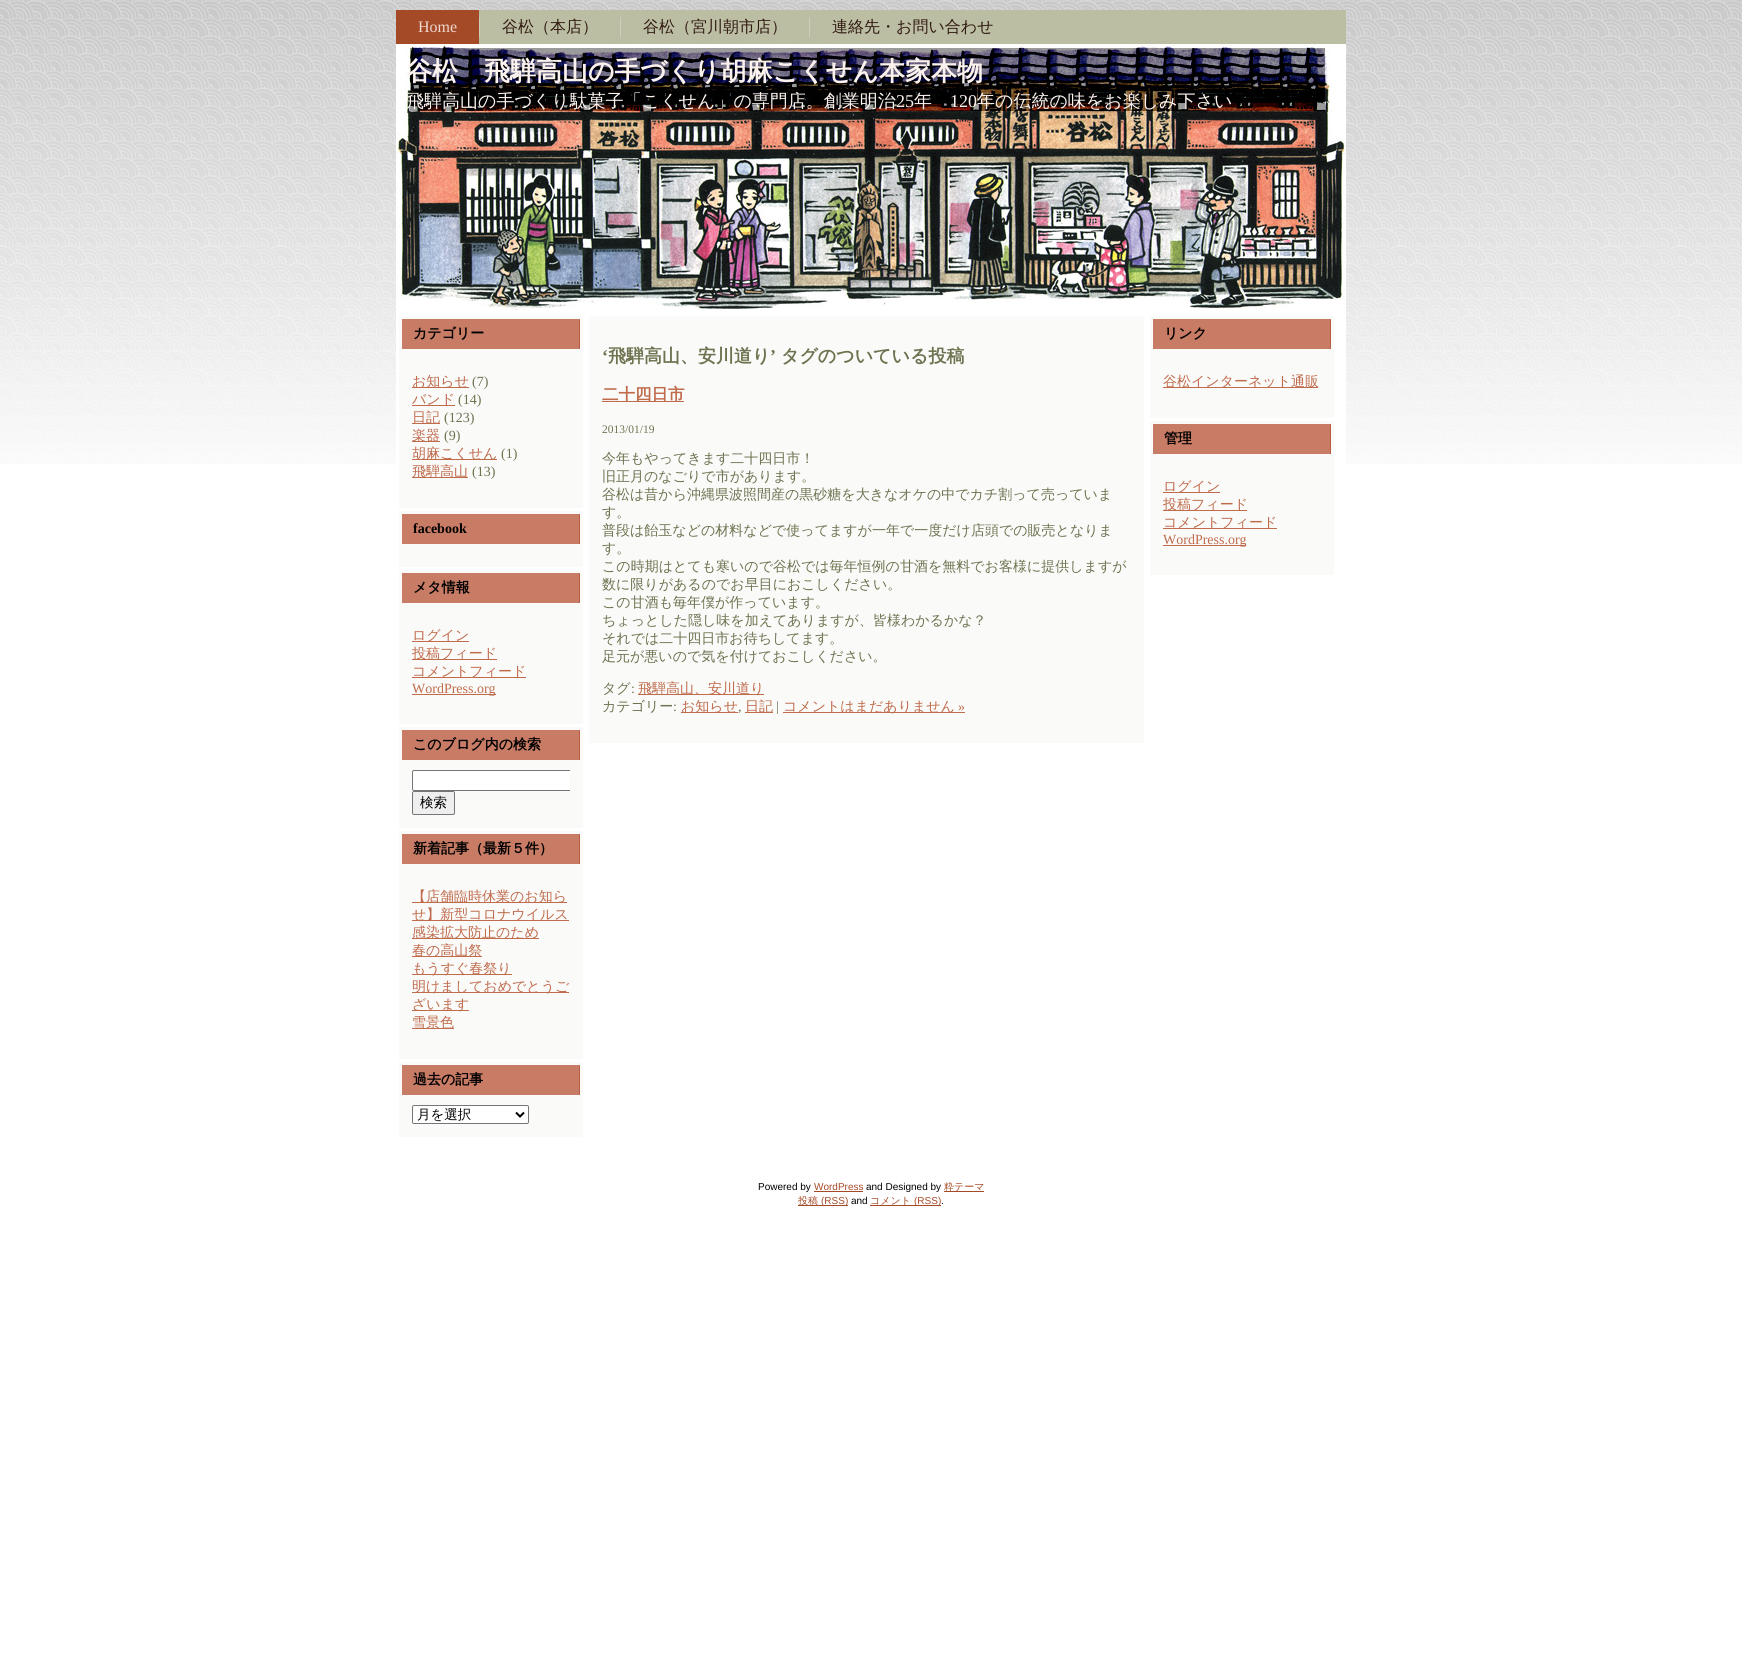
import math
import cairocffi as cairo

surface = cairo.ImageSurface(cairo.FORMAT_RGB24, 1742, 1663)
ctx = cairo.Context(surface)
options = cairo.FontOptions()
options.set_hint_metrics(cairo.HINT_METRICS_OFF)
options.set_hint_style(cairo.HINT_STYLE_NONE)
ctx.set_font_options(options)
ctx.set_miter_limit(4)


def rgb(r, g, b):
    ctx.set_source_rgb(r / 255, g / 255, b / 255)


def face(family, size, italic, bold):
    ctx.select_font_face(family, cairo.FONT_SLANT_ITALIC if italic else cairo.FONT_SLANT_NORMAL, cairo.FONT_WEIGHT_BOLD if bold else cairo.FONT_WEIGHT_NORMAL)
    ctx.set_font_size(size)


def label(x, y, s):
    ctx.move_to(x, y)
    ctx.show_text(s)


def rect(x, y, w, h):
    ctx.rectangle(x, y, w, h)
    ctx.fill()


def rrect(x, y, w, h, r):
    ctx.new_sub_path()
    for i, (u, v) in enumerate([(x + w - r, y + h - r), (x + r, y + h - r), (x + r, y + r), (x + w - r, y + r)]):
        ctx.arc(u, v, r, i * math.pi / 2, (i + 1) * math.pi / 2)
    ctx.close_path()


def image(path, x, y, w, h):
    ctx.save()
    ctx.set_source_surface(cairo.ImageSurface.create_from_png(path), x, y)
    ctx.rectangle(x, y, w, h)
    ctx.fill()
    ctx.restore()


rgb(255, 255, 255)
ctx.paint()
image('image0.png', 0, 0, 1742, 464)
rgb(187, 190, 162)
rect(479, 10, 867, 34)
rgb(165, 74, 39)
rect(396, 10, 83, 34)
face('Liberation Serif', 16, 0, 0)
rgb(239, 216, 210)
label(418, 32, 'Home')
rgb(204, 207, 186)
rect(479, 17, 1, 20)
face('WenQuanYi Zen Hei Medium', 16, 0, 0)
rgb(49, 25, 18)
label(502, 32, '谷松（本店）')
rgb(204, 207, 186)
rect(620, 17, 1, 20)
rgb(49, 25, 18)
label(643, 32, '谷松（宮川朝市店）')
rgb(204, 207, 186)
rect(809, 17, 1, 20)
rgb(49, 25, 18)
label(832, 32, '連絡先・お問い合わせ')
image('image1.png', 396, 44, 950, 266)
face('WenQuanYi Zen Hei', 26, 0, 1)
rgb(251, 242, 238)
label(406, 80, '谷松　飛騨高山の手づくり胡麻こくせん本家本物')
face('WenQuanYi Zen Hei Medium', 18, 0, 0)
label(406, 107, '飛騨高山の手づくり駄菓子「こくせん」の専門店。創業明治')
face('Liberation Serif', 18, 0, 0)
label(896, 107, '25')
face('WenQuanYi Zen Hei Medium', 18, 0, 0)
label(914, 107, '年')
face('Liberation Serif', 18, 0, 0)
label(950, 107, '120')
face('WenQuanYi Zen Hei Medium', 18, 0, 0)
label(977, 107, '年の伝統の味をお楽しみ下さい')
rgb(255, 255, 255)
rect(396, 310, 950, 154)
rgb(250, 250, 249)
rect(399, 316, 184, 192)
rgb(200, 123, 101)
rect(402, 319, 177, 30)
image('image2.png', 579, 319, 1, 30)
face('WenQuanYi Zen Hei', 14, 0, 1)
rgb(0, 0, 0)
label(413, 338, 'カテゴリー')
rgb(191, 107, 76)
rect(412, 387, 57, 1)
face('WenQuanYi Zen Hei Medium', 14, 0, 0)
label(412, 386, 'お知らせ')
face('Liberation Serif', 14, 0, 0)
rgb(110, 114, 79)
label(472, 386, '(7)')
rgb(191, 107, 76)
rect(412, 405, 43, 1)
face('WenQuanYi Zen Hei Medium', 14, 0, 0)
label(412, 404, 'バンド')
face('Liberation Serif', 14, 0, 0)
rgb(110, 114, 79)
label(458, 404, '(14)')
rgb(191, 107, 76)
rect(412, 423, 28, 1)
face('WenQuanYi Zen Hei Medium', 14, 0, 0)
label(412, 422, '日記')
face('Liberation Serif', 14, 0, 0)
rgb(110, 114, 79)
label(444, 422, '(123)')
rgb(191, 107, 76)
rect(412, 441, 28, 1)
face('WenQuanYi Zen Hei Medium', 14, 0, 0)
label(412, 440, '楽器')
face('Liberation Serif', 14, 0, 0)
rgb(110, 114, 79)
label(444, 440, '(9)')
rgb(191, 107, 76)
rect(412, 459, 85, 1)
face('WenQuanYi Zen Hei Medium', 14, 0, 0)
label(412, 458, '胡麻こくせん')
face('Liberation Serif', 14, 0, 0)
rgb(110, 114, 79)
label(501, 458, '(1)')
rgb(191, 107, 76)
rect(412, 477, 56, 1)
face('WenQuanYi Zen Hei Medium', 14, 0, 0)
label(412, 476, '飛騨高山')
face('Liberation Serif', 14, 0, 0)
rgb(110, 114, 79)
label(472, 476, '(13)')
rgb(250, 250, 249)
rect(399, 511, 184, 56)
rgb(200, 123, 101)
rect(402, 514, 177, 30)
image('image2.png', 579, 514, 1, 30)
face('Liberation Serif', 14, 0, 1)
rgb(0, 0, 0)
label(413, 533, 'facebook')
rgb(250, 250, 249)
rect(399, 570, 184, 154)
rgb(200, 123, 101)
rect(402, 573, 177, 30)
image('image2.png', 579, 573, 1, 30)
face('WenQuanYi Zen Hei', 14, 0, 1)
rgb(0, 0, 0)
label(413, 592, 'メタ情報')
rgb(191, 107, 76)
rect(412, 641, 57, 1)
face('WenQuanYi Zen Hei Medium', 14, 0, 0)
label(412, 640, 'ログイン')
rect(412, 659, 85, 1)
label(412, 658, '投稿フィード')
rect(412, 677, 114, 1)
label(412, 676, 'コメントフィード')
rect(412, 694, 84, 1)
face('Liberation Serif', 14, 0, 0)
label(412, 693, 'WordPress.org')
rgb(250, 250, 249)
rect(399, 727, 184, 101)
rgb(200, 123, 101)
rect(402, 730, 177, 30)
image('image2.png', 579, 730, 1, 30)
face('WenQuanYi Zen Hei', 14, 0, 1)
rgb(0, 0, 0)
label(413, 749, 'このブログ内の検索')
rgb(255, 255, 255)
ctx.new_path()
ctx.move_to(414, 770)
ctx.line_to(570, 770)
ctx.line_to(570, 791)
ctx.line_to(414, 791)
ctx.curve_to(413, 791, 412, 790, 412, 789)
ctx.line_to(412, 772)
ctx.curve_to(412, 771, 413, 770, 414, 770)
ctx.close_path()
ctx.fill()
ctx.save()
ctx.rectangle(412, 770, 158, 45)
ctx.clip()
rrect(412.5, 770.5, 184, 20, 1.5)
rgb(118, 118, 118)
ctx.set_line_width(1)
ctx.stroke()
ctx.restore()
rgb(239, 239, 239)
rrect(412.5, 791.5, 42, 23, 1.5)
ctx.fill_preserve()
rgb(118, 118, 118)
ctx.set_line_width(1)
ctx.stroke()
face('WenQuanYi Zen Hei Medium', 13.5, 0, 0)
rgb(0, 0, 0)
label(420, 807, '検索')
rgb(250, 250, 249)
rect(399, 831, 184, 228)
rgb(200, 123, 101)
rect(402, 834, 177, 30)
image('image2.png', 579, 834, 1, 30)
face('WenQuanYi Zen Hei', 14, 0, 1)
rgb(0, 0, 0)
label(413, 853, '新着記事（最新５件）')
rgb(191, 107, 76)
rect(412, 902, 155, 1)
face('WenQuanYi Zen Hei Medium', 14, 0, 0)
label(412, 901, '【店舗臨時休業のお知ら')
rect(412, 920, 157, 1)
label(412, 919, 'せ】新型コロナウイルス')
rect(412, 938, 127, 1)
label(412, 937, '感染拡大防止のため')
rect(412, 956, 70, 1)
label(412, 955, '春の高山祭')
rect(412, 974, 100, 1)
label(412, 973, 'もうすぐ春祭り')
rect(412, 992, 157, 1)
label(412, 991, '明けましておめでとうご')
rect(412, 1010, 57, 1)
label(412, 1009, 'ざいます')
rect(412, 1028, 42, 1)
label(412, 1027, '雪景色')
rgb(250, 250, 249)
rect(399, 1062, 184, 75)
rgb(200, 123, 101)
rect(402, 1065, 177, 30)
image('image2.png', 579, 1065, 1, 30)
face('WenQuanYi Zen Hei', 14, 0, 1)
rgb(0, 0, 0)
label(413, 1084, '過去の記事')
rgb(255, 255, 255)
rrect(412.5, 1105.5, 116, 18, 1.5)
ctx.fill_preserve()
rgb(118, 118, 118)
ctx.stroke()
ctx.new_path()
ctx.move_to(516, 1112.5)
ctx.line_to(520, 1116.5)
ctx.line_to(524, 1112.5)
rgb(0, 0, 0)
ctx.set_line_width(2)
ctx.stroke()
face('WenQuanYi Zen Hei Medium', 13.5, 0, 0)
label(417, 1119, '月を選択')
rgb(250, 250, 249)
rect(589, 316, 555, 427)
face('Liberation Serif', 18, 0, 1)
rgb(110, 114, 79)
label(602, 362, '‘')
face('WenQuanYi Zen Hei', 18, 0, 1)
label(608, 362, '飛騨高山、安川道り')
face('Liberation Serif', 18, 0, 1)
label(770, 362, '’')
face('WenQuanYi Zen Hei', 18, 0, 1)
label(781, 362, 'タグのついている投稿')
rgb(191, 107, 76)
rect(602, 401, 82, 1)
face('WenQuanYi Zen Hei', 16.5, 0, 1)
label(602, 400, '二十四日市')
face('Liberation Serif', 11.5, 0, 0)
rgb(110, 114, 79)
label(602, 433, '2013/01/19')
face('WenQuanYi Zen Hei Medium', 14, 0, 0)
label(602, 463, '今年もやってきます二十四日市！')
label(602, 481, '旧正月のなごりで市があります。')
label(602, 499, '谷松は昔から沖縄県波照間産の黒砂糖を大きなオケの中でカチ割って売っていま')
label(602, 517, 'す。')
label(602, 535, '普段は飴玉などの材料などで使ってますが一年で一度だけ店頭での販売となりま')
label(602, 553, 'す。')
label(602, 571, 'この時期はとても寒いので谷松では毎年恒例の甘酒を無料でお客様に提供しますが')
label(602, 589, '数に限りがあるのでお早目におこしください。')
label(602, 607, 'この甘酒も毎年僕が作っています。')
label(602, 625, 'ちょっとした隠し味を加えてありますが、皆様わかるかな？')
label(602, 643, 'それでは二十四日市お待ちしてます。')
label(602, 661, '足元が悪いので気を付けておこしください。')
label(602, 693, 'タグ')
face('Liberation Serif', 14, 0, 0)
label(631, 693, ':')
rgb(191, 107, 76)
rect(638, 694, 126, 1)
face('WenQuanYi Zen Hei Medium', 14, 0, 0)
label(638, 693, '飛騨高山、安川道り')
rgb(110, 114, 79)
label(602, 711, 'カテゴリー')
face('Liberation Serif', 14, 0, 0)
label(673, 711, ':')
rgb(191, 107, 76)
rect(681, 712, 57, 1)
face('WenQuanYi Zen Hei Medium', 14, 0, 0)
label(681, 711, 'お知らせ')
rect(745, 712, 28, 1)
label(745, 711, '日記')
face('Liberation Serif', 14, 0, 0)
rgb(110, 114, 79)
label(776, 711, '|')
rgb(191, 107, 76)
rect(783, 712, 182, 1)
face('WenQuanYi Zen Hei Medium', 14, 0, 0)
label(783, 711, 'コメントはまだありません')
face('Liberation Serif', 14, 0, 0)
label(958, 711, '»')
rgb(110, 114, 79)
label(738, 711, ',')
rgb(250, 250, 249)
rect(1150, 316, 184, 102)
rgb(200, 123, 101)
rect(1153, 319, 177, 30)
image('image2.png', 1330, 319, 1, 30)
face('WenQuanYi Zen Hei', 14, 0, 1)
rgb(0, 0, 0)
label(1164, 338, 'リンク')
rgb(191, 107, 76)
rect(1163, 387, 155, 1)
face('WenQuanYi Zen Hei Medium', 14, 0, 0)
label(1163, 386, '谷松インターネット通販')
rgb(250, 250, 249)
rect(1150, 421, 184, 154)
rgb(200, 123, 101)
rect(1153, 424, 177, 30)
image('image2.png', 1330, 424, 1, 30)
face('WenQuanYi Zen Hei', 14, 0, 1)
rgb(0, 0, 0)
label(1164, 443, '管理')
rgb(191, 107, 76)
rect(1163, 492, 57, 1)
face('WenQuanYi Zen Hei Medium', 14, 0, 0)
label(1163, 491, 'ログイン')
rect(1163, 510, 84, 1)
ctx.save()
ctx.rectangle(1163, 464, 158, 98)
ctx.clip()
label(1163, 509, '投稿フィード')
ctx.restore()
rect(1163, 528, 114, 1)
label(1163, 527, 'コメントフィード')
rect(1163, 545, 83, 1)
face('Liberation Serif', 14, 0, 0)
label(1163, 544, 'WordPress.org')
face('Liberation Sans', 10, 0, 0)
rgb(0, 0, 0)
label(758, 1190, 'Powered by')
rgb(165, 74, 39)
label(814, 1190, 'WordPress')
rect(814, 1191, 49, 1)
rgb(0, 0, 0)
label(866, 1190, 'and Designed by')
rgb(165, 74, 39)
rect(944, 1191, 40, 1)
face('WenQuanYi Zen Hei Medium', 10, 0, 0)
label(944, 1190, '粋テーマ')
rect(798, 1205, 50, 1)
label(798, 1204, '投稿')
face('Liberation Sans', 10, 0, 0)
label(821, 1204, '(RSS)')
rgb(0, 0, 0)
label(851, 1204, 'and')
rgb(165, 74, 39)
rect(870, 1205, 71, 1)
face('WenQuanYi Zen Hei Medium', 10, 0, 0)
label(870, 1204, 'コメント')
face('Liberation Sans', 10, 0, 0)
label(914, 1204, '(RSS)')
rgb(0, 0, 0)
label(941, 1204, '.')
surface.write_to_png('render.png')
